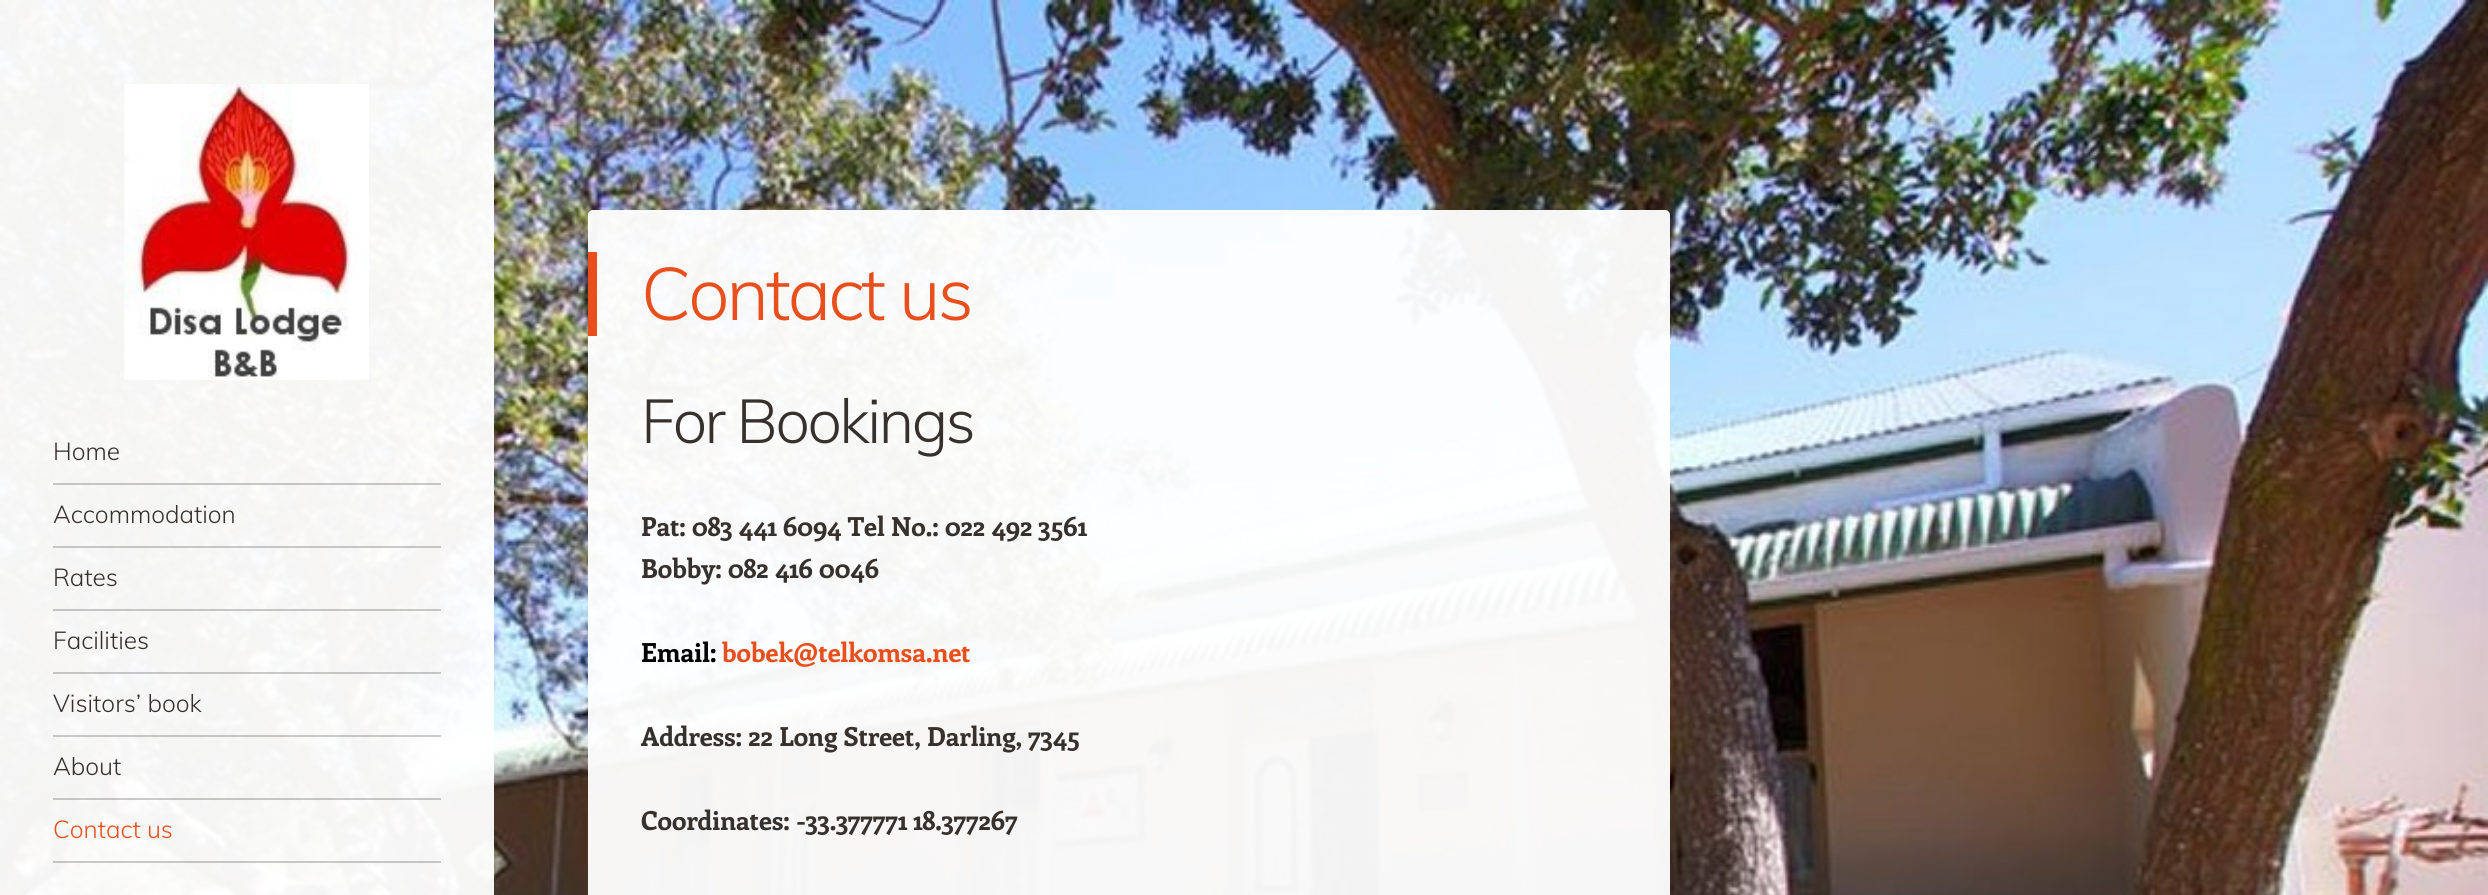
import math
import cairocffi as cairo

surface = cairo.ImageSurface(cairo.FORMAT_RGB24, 2488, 895)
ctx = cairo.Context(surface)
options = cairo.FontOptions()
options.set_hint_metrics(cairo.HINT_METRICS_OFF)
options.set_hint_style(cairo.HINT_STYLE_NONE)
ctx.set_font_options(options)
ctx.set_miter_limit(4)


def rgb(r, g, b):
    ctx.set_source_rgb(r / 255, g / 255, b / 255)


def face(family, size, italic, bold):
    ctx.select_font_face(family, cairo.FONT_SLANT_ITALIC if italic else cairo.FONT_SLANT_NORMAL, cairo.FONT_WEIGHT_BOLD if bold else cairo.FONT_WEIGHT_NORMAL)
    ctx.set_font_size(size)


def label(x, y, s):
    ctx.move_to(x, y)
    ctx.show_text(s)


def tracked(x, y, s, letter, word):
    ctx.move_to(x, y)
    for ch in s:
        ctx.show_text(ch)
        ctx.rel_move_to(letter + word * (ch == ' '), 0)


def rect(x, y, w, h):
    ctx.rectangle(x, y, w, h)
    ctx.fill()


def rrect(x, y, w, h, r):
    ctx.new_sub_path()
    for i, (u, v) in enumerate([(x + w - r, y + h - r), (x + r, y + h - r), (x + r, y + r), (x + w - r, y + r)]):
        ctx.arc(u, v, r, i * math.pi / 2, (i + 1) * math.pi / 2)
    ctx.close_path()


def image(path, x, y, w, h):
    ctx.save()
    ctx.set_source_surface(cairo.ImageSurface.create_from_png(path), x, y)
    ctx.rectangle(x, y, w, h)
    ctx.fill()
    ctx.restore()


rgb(255, 255, 255)
ctx.paint()
image('image0.png', 0, 0, 2488, 895)
ctx.set_source_rgba(1, 1, 1, 0.95)
rect(0, 0, 494, 895)
rrect(588, 210, 1082, 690, 5)
ctx.fill()
rgb(233, 79, 29)
rect(588, 252, 9, 84)
face('Muli Light', 73.5, 0, 0)
tracked(641, 320, 'Contact us', -3, 0)
face('Muli Light', 61.25, 0, 0)
rgb(54, 49, 45)
tracked(641, 443, 'For Bookings', -2.5, 0)
face('Enriqueta', 26.25, 0, 1)
label(641, 536, 'Pat: 083 441 6094 Tel No.: 022 492 3561')
label(641, 578, 'Bobby: 082 416 0046')
rgb(0, 0, 0)
label(641, 662, 'Email:')
rgb(233, 79, 29)
label(722, 662, 'bobek@telkomsa.net')
rgb(54, 49, 45)
label(641, 746, 'Address: 22 Long Street, Darling, 7345')
label(641, 830, 'Coordinates: -33.377771 18.377267')
image('image1.png', 124, 84, 245, 296)
ctx.set_source_rgba(0, 0, 0, 0.2)
rect(53, 483, 388, 2)
face('Muli Light', 24.5, 0, 0)
rgb(54, 49, 45)
label(53, 460, 'Home')
ctx.set_source_rgba(0, 0, 0, 0.2)
rect(53, 546, 388, 2)
rgb(54, 49, 45)
label(53, 523, 'Accommodation')
ctx.set_source_rgba(0, 0, 0, 0.2)
rect(53, 609, 388, 2)
rgb(54, 49, 45)
label(53, 586, 'Rates')
ctx.set_source_rgba(0, 0, 0, 0.2)
rect(53, 672, 388, 2)
rgb(54, 49, 45)
label(53, 649, 'Facilities')
ctx.set_source_rgba(0, 0, 0, 0.2)
rect(53, 735, 388, 2)
rgb(54, 49, 45)
label(53, 712, 'Visitors’ book')
ctx.set_source_rgba(0, 0, 0, 0.2)
rect(53, 798, 388, 2)
rgb(54, 49, 45)
label(53, 775, 'About')
ctx.set_source_rgba(0, 0, 0, 0.2)
rect(53, 861, 388, 2)
rgb(233, 79, 29)
label(53, 838, 'Contact us')
surface.write_to_png('render.png')
